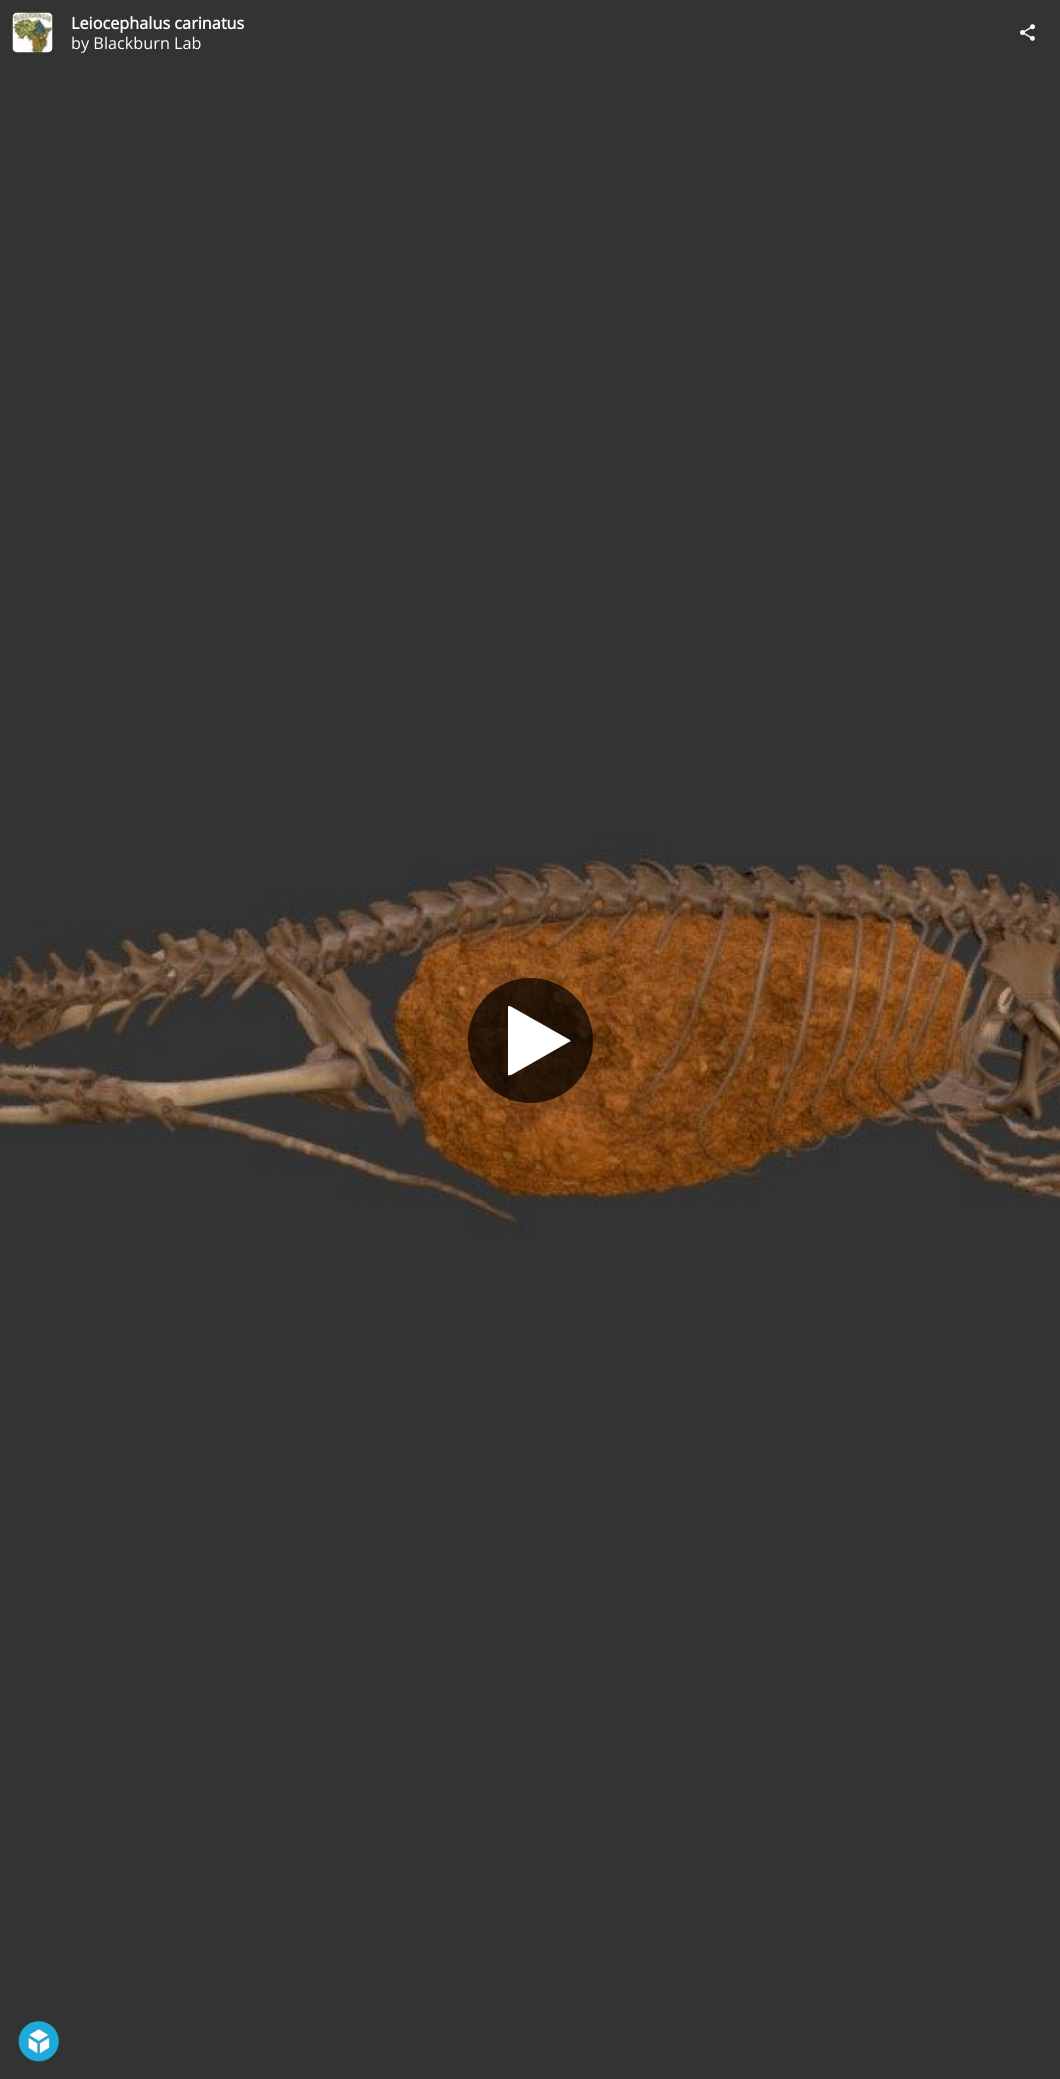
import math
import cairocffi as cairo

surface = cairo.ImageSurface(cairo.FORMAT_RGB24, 1060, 2079)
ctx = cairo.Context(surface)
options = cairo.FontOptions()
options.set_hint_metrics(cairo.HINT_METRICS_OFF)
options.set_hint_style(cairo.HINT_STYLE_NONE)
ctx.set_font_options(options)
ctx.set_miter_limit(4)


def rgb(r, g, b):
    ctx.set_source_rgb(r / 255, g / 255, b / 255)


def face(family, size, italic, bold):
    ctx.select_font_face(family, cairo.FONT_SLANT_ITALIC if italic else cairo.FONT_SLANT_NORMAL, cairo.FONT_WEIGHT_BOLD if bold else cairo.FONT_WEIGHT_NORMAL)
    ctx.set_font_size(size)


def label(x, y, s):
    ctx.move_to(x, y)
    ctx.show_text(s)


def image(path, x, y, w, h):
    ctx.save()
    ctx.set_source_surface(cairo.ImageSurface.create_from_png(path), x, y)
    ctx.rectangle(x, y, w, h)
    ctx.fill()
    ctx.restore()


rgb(255, 255, 255)
ctx.paint()
image('image0.png', 0, 0, 1060, 2079)
ctx.set_source_rgba(0, 0, 0, 0.7)
ctx.arc(530.5, 1040.5, 62.5, 0, 2 * math.pi)
ctx.fill()
rgb(255, 255, 255)
ctx.new_path()
ctx.move_to(569, 1042)
ctx.line_to(520, 1070)
ctx.curve_to(519, 1070, 510, 1077, 508, 1075)
ctx.line_to(508, 1007)
ctx.curve_to(508, 1006, 509, 1006, 510, 1006)
ctx.line_to(570, 1040)
ctx.curve_to(571, 1041, 570, 1042, 569, 1042)
ctx.close_path()
ctx.fill()
image('image1.png', 18, 2021, 41, 41)
image('image2.png', 12, 12, 41, 41)
face('Open Sans', 16.25, 0, 1)
label(71, 29, 'Leiocephalus carinatus')
face('Open Sans', 16.25, 0, 0)
label(71, 49, 'by Blackburn Lab')
image('image3.png', 1020, 24, 15, 17)
surface.write_to_png('render.png')
